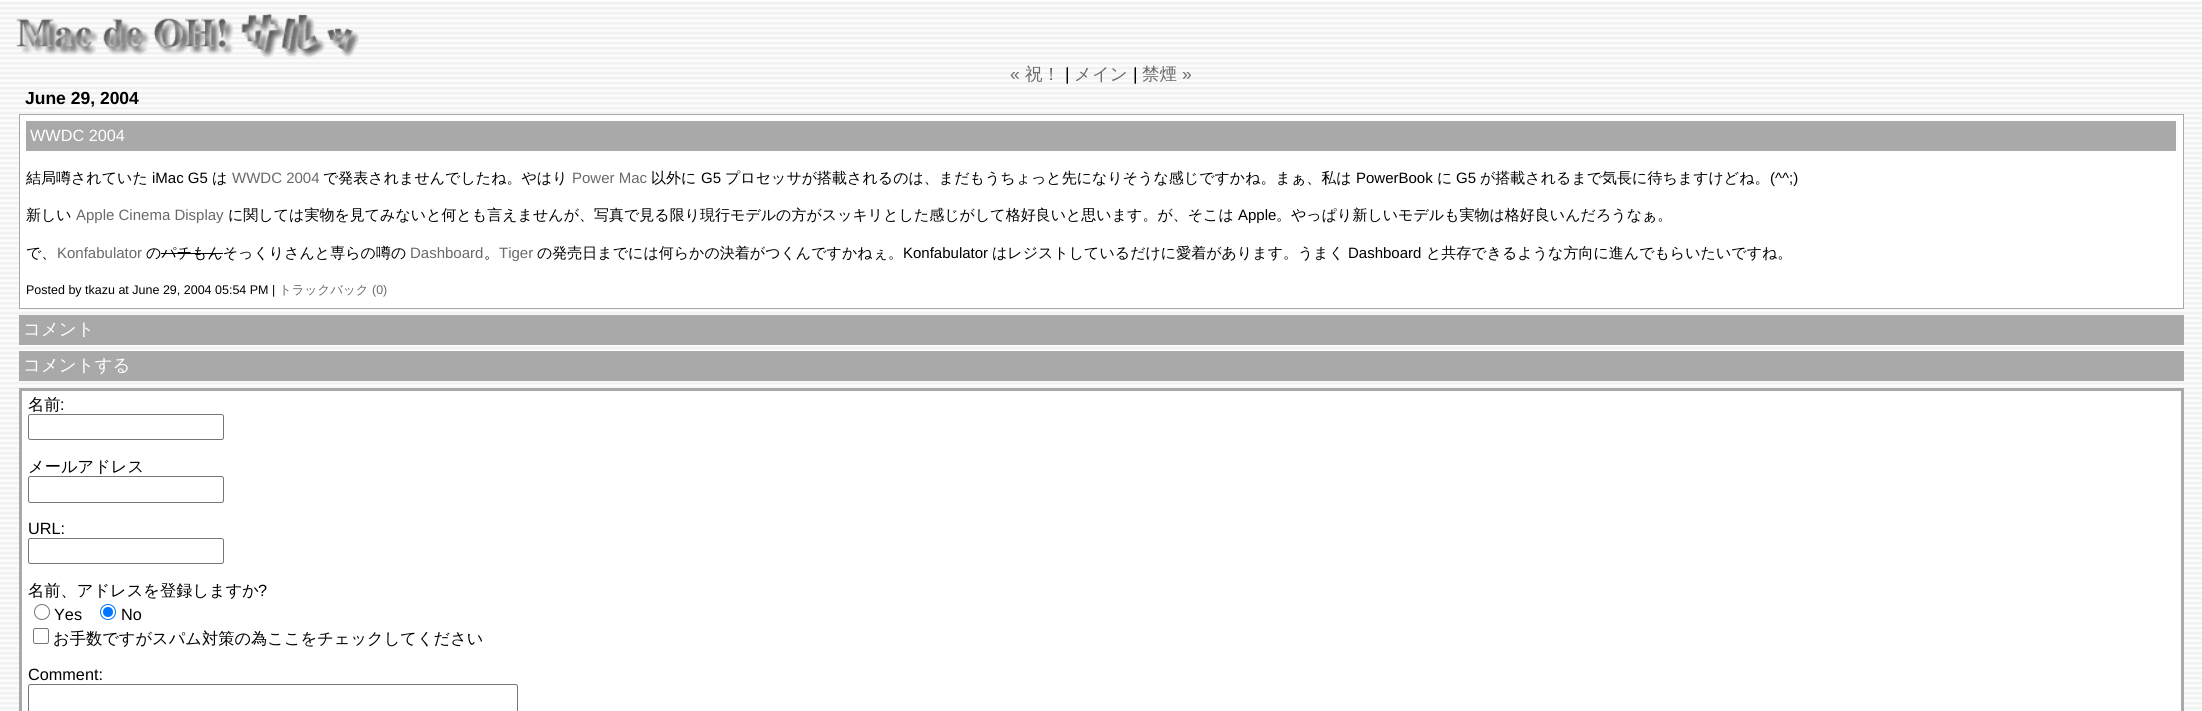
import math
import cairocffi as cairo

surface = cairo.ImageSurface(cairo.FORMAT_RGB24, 2202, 711)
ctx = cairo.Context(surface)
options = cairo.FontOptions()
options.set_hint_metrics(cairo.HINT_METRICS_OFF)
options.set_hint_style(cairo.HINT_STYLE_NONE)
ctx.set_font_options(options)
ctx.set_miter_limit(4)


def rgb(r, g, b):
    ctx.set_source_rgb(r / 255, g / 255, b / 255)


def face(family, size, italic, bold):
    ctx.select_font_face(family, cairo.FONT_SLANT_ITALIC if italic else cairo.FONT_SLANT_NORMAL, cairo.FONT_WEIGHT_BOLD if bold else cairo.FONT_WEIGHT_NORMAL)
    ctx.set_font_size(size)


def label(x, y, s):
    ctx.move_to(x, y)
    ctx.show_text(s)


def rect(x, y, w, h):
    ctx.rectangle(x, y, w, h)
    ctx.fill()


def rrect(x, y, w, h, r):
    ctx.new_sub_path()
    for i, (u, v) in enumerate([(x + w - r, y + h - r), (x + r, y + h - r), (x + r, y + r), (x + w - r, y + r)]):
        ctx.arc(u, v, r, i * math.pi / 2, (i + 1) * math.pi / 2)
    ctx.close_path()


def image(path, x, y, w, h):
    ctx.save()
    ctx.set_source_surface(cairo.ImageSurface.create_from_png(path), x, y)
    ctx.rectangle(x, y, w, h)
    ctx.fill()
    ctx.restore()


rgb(255, 255, 255)
ctx.paint()
image('image0.png', 0, 1, 2202, 709)
image('image1.png', 16, 13, 343, 45)
face('Liberation Sans', 17.5, 0, 0)
rgb(105, 105, 105)
label(1010, 80, '«')
face('WenQuanYi Zen Hei Medium', 17.5, 0, 0)
label(1025, 80, '祝！')
face('Liberation Sans', 17.5, 0, 0)
rgb(0, 0, 0)
label(1065, 80, '|')
face('WenQuanYi Zen Hei Medium', 17.5, 0, 0)
rgb(105, 105, 105)
label(1074, 80, 'メイン')
face('Liberation Sans', 17.5, 0, 0)
rgb(0, 0, 0)
label(1133, 80, '|')
face('WenQuanYi Zen Hei Medium', 17.5, 0, 0)
rgb(105, 105, 105)
label(1142, 80, '禁煙')
face('Liberation Sans', 17.5, 0, 0)
label(1182, 80, '»')
face('Liberation Sans', 17.5, 0, 1)
rgb(0, 0, 0)
label(25, 104, 'June 29, 2004')
rgb(255, 255, 255)
rect(20, 116, 2163, 192)
ctx.rectangle(19.5, 114.5, 2164, 194)
rgb(169, 169, 169)
ctx.set_line_width(1)
ctx.stroke()
rect(26, 121, 2150, 30)
face('Liberation Sans', 16.25, 0, 0)
rgb(255, 255, 255)
label(30, 141, 'WWDC 2004')
face('WenQuanYi Zen Hei Medium', 15, 0, 0)
rgb(0, 0, 0)
label(26, 183, '結局噂されていた')
face('Liberation Sans', 15, 0, 0)
label(152, 183, 'iMac G5')
face('WenQuanYi Zen Hei Medium', 15, 0, 0)
label(212, 183, 'は')
face('Liberation Sans', 15, 0, 0)
rgb(105, 105, 105)
label(232, 183, 'WWDC 2004')
face('WenQuanYi Zen Hei Medium', 15, 0, 0)
rgb(0, 0, 0)
label(323, 183, 'で発表されませんでしたね。やはり')
face('Liberation Sans', 15, 0, 0)
rgb(105, 105, 105)
label(572, 183, 'Power Mac')
face('WenQuanYi Zen Hei Medium', 15, 0, 0)
rgb(0, 0, 0)
label(651, 183, '以外に')
face('Liberation Sans', 15, 0, 0)
label(701, 183, 'G5')
face('WenQuanYi Zen Hei Medium', 15, 0, 0)
label(725, 183, 'プロセッサが搭載されるのは、まだもうちょっと先になりそうな感じですかね。まぁ、私は')
face('Liberation Sans', 15, 0, 0)
label(1356, 183, 'PowerBook')
face('WenQuanYi Zen Hei Medium', 15, 0, 0)
label(1437, 183, 'に')
face('Liberation Sans', 15, 0, 0)
label(1456, 183, 'G5')
face('WenQuanYi Zen Hei Medium', 15, 0, 0)
label(1480, 183, 'が搭載されるまで気長に待ちますけどね。')
face('Liberation Sans', 15, 0, 0)
label(1770, 183, '(^^;)')
face('WenQuanYi Zen Hei Medium', 15, 0, 0)
label(26, 220, '新しい')
face('Liberation Sans', 15, 0, 0)
rgb(105, 105, 105)
label(76, 220, 'Apple Cinema Display')
face('WenQuanYi Zen Hei Medium', 15, 0, 0)
rgb(0, 0, 0)
label(228, 220, 'に関しては実物を見てみないと何とも言えませんが、写真で見る限り現行モデルの方がスッキリとした感じがして格好良いと思います。が、そこは')
face('Liberation Sans', 15, 0, 0)
label(1238, 220, 'Apple')
face('WenQuanYi Zen Hei Medium', 15, 0, 0)
label(1276, 220, '。やっぱり新しいモデルも実物は格好良いんだろうなぁ。')
label(26, 258, 'で、')
face('Liberation Sans', 15, 0, 0)
rgb(105, 105, 105)
label(57, 258, 'Konfabulator')
face('WenQuanYi Zen Hei Medium', 15, 0, 0)
rgb(0, 0, 0)
label(146, 258, 'のパチもんそっくりさんと専らの噂の')
face('Liberation Sans', 15, 0, 0)
rgb(105, 105, 105)
label(410, 258, 'Dashboard')
label(499, 258, 'Tiger')
face('WenQuanYi Zen Hei Medium', 15, 0, 0)
rgb(0, 0, 0)
label(537, 258, 'の発売日までには何らかの決着がつくんですかねぇ。')
face('Liberation Sans', 15, 0, 0)
label(903, 258, 'Konfabulator')
face('WenQuanYi Zen Hei Medium', 15, 0, 0)
label(992, 258, 'はレジストしているだけに愛着があります。うまく')
face('Liberation Sans', 15, 0, 0)
label(1348, 258, 'Dashboard')
face('WenQuanYi Zen Hei Medium', 15, 0, 0)
label(1426, 258, 'と共存できるような方向に進んでもらいたいですね。')
rect(161, 253, 62, 1)
label(484, 258, '。')
face('Liberation Sans', 12.5, 0, 0)
label(26, 294, 'Posted by tkazu at June 29, 2004 05:54 PM |')
face('WenQuanYi Zen Hei Medium', 12.5, 0, 0)
rgb(105, 105, 105)
label(279, 294, 'トラックバック')
face('Liberation Sans', 12.5, 0, 0)
label(372, 294, '(0)')
rgb(169, 169, 169)
rect(19, 315, 2165, 30)
face('WenQuanYi Zen Hei Medium', 17.5, 0, 0)
rgb(255, 255, 255)
label(23, 335, 'コメント')
rgb(169, 169, 169)
rect(19, 351, 2165, 30)
rgb(255, 255, 255)
label(23, 371, 'コメントする')
rect(22, 391, 2159, 319)
ctx.rectangle(20.5, 389.5, 2162, 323)
rgb(169, 169, 169)
ctx.set_line_width(3)
ctx.stroke()
face('WenQuanYi Zen Hei Medium', 16.25, 0, 0)
rgb(0, 0, 0)
label(28, 410, '名前')
face('Liberation Sans', 16.25, 0, 0)
label(60, 410, ':')
rrect(28.5, 414.5, 195, 25, 2)
rgb(118, 118, 118)
ctx.set_line_width(1)
ctx.stroke()
face('WenQuanYi Zen Hei Medium', 16.25, 0, 0)
rgb(0, 0, 0)
label(28, 472, 'メールアドレス')
rrect(28.5, 476.5, 195, 26, 2)
rgb(118, 118, 118)
ctx.stroke()
face('Liberation Sans', 16.25, 0, 0)
rgb(0, 0, 0)
label(28, 534, 'URL:')
rrect(28.5, 538.5, 195, 25, 2)
rgb(118, 118, 118)
ctx.stroke()
face('WenQuanYi Zen Hei Medium', 16.25, 0, 0)
rgb(0, 0, 0)
label(28, 596, '名前、アドレスを登録しますか')
face('Liberation Sans', 16.25, 0, 0)
label(258, 596, '?')
ctx.new_path()
ctx.arc(42, 612, 7.5, 0, 2 * math.pi)
rgb(118, 118, 118)
ctx.stroke()
rgb(0, 0, 0)
label(54, 620, 'Yes')
ctx.new_path()
ctx.arc(108, 612, 7.5, 0, 2 * math.pi)
rgb(0, 117, 255)
ctx.stroke()
ctx.arc(108, 612, 5, 0, 2 * math.pi)
ctx.fill()
rgb(0, 0, 0)
label(121, 620, 'No')
rrect(33.5, 628.5, 15, 15, 2)
rgb(118, 118, 118)
ctx.stroke()
face('WenQuanYi Zen Hei Medium', 16.25, 0, 0)
rgb(0, 0, 0)
label(53, 644, 'お手数ですがスパム対策の為ここをチェックしてください')
face('Liberation Sans', 16.25, 0, 0)
label(28, 680, 'Comment:')
rrect(28.5, 684.5, 489, 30, 2)
rgb(118, 118, 118)
ctx.stroke()
surface.write_to_png('render.png')
